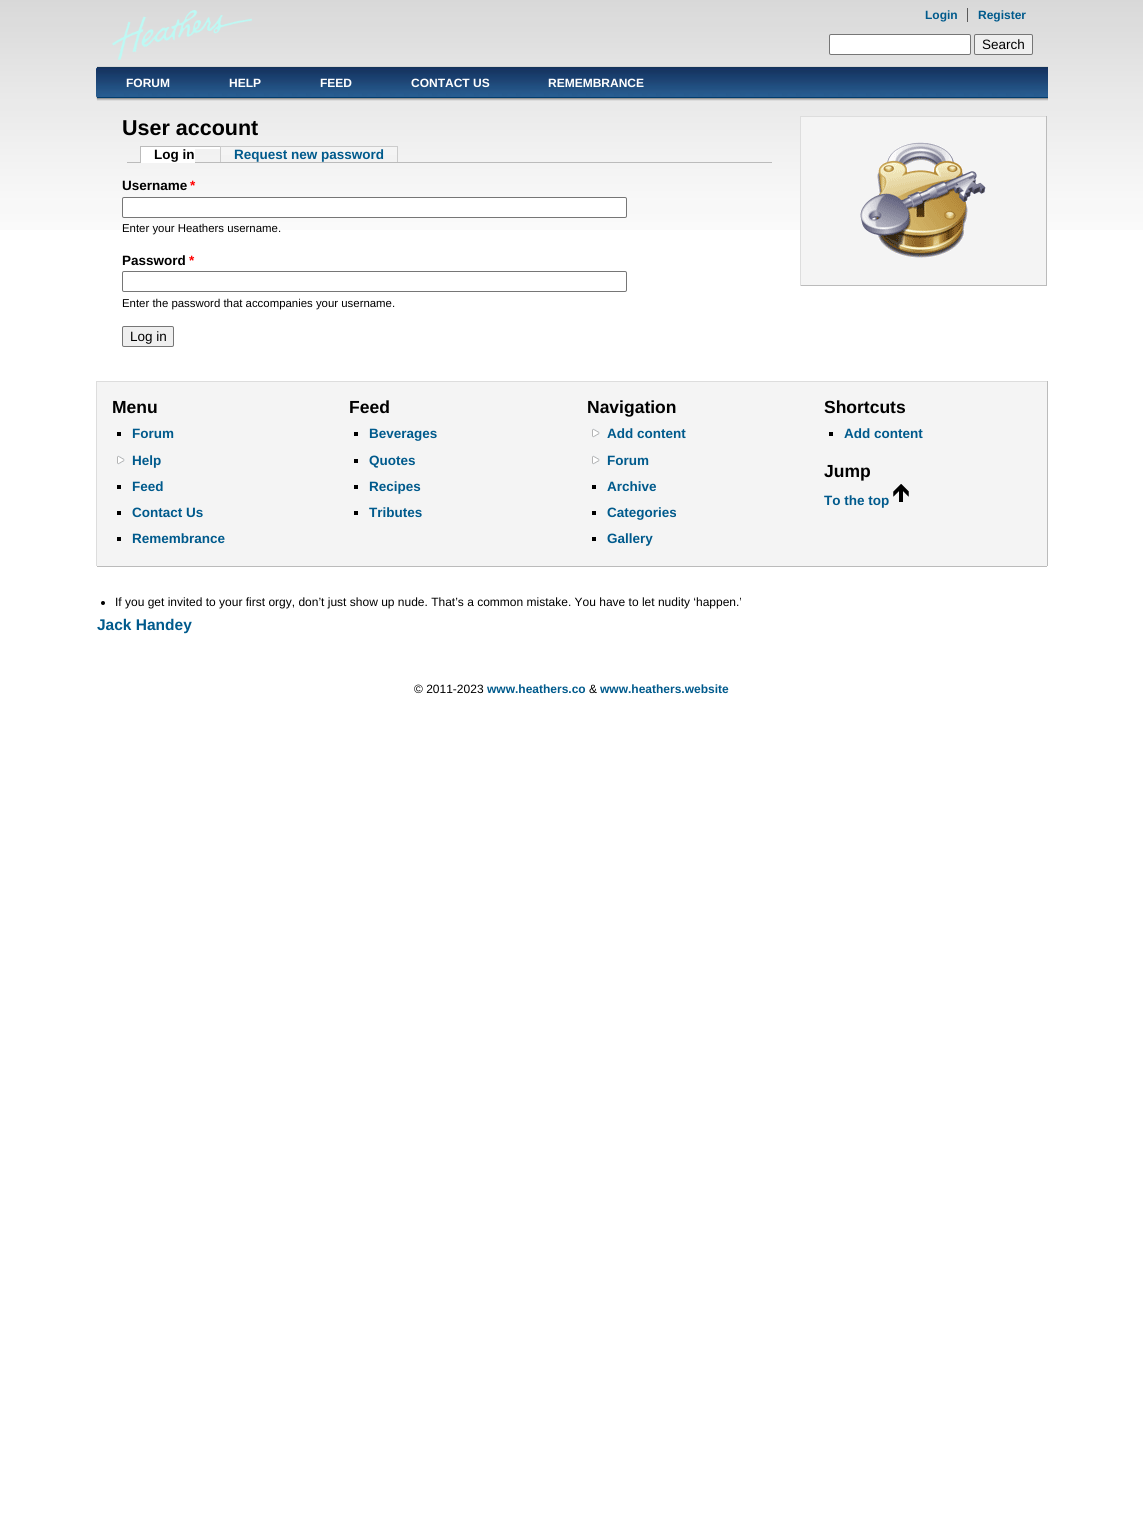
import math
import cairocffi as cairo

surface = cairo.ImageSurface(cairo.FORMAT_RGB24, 1143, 1522)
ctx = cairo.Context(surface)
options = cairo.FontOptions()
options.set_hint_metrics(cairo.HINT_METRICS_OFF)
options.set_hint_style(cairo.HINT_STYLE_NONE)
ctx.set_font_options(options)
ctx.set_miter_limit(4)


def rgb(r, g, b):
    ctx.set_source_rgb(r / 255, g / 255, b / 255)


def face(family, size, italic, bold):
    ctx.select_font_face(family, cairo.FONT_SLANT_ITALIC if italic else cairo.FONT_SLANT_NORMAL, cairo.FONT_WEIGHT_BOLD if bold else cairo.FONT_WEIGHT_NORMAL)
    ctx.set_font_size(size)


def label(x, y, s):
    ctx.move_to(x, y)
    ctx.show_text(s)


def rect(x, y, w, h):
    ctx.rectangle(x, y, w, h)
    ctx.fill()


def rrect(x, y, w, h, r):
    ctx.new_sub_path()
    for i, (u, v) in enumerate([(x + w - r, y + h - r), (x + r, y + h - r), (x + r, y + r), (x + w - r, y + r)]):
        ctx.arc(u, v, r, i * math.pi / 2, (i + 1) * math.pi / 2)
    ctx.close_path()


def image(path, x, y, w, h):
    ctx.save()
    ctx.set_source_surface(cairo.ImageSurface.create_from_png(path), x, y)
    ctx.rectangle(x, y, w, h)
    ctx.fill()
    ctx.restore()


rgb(255, 255, 255)
ctx.paint()
image('image0.png', 0, 0, 1143, 230)
image('image1.png', 112, 10, 140, 50)
face('Liberation Sans', 12, 0, 1)
rgb(0, 90, 140)
label(925, 19, 'Login')
rgb(90, 90, 90)
rect(967, 8, 1, 14)
rgb(0, 90, 140)
label(978, 19, 'Register')
rgb(255, 255, 255)
rrect(829.5, 34.5, 141, 20, 1.5)
ctx.fill_preserve()
rgb(118, 118, 118)
ctx.set_line_width(1)
ctx.stroke()
rgb(239, 239, 239)
rrect(974.5, 34.5, 58, 20, 1.5)
ctx.fill_preserve()
rgb(118, 118, 118)
ctx.stroke()
face('Liberation Sans', 13.5, 0, 0)
rgb(0, 0, 0)
label(982, 49, 'Search')
image('image2.png', 97, 66, 951, 35)
image('image3.png', 96, 66, 1, 35)
face('Liberation Sans', 12, 0, 1)
rgb(255, 255, 255)
label(126, 87, 'FORUM')
label(229, 87, 'HELP')
label(320, 87, 'FEED')
label(411, 87, 'CONTACT US')
label(548, 87, 'REMEMBRANCE')
face('Liberation Sans', 21.5, 0, 1)
rgb(0, 0, 0)
label(122, 135, 'User account')
rgb(187, 187, 187)
rect(127, 162, 645, 1)
rgb(255, 255, 255)
rect(141, 147, 54, 16)
face('Liberation Sans', 13.5, 0, 1)
rgb(0, 0, 0)
label(154, 159, 'Log in')
rgb(187, 187, 187)
rect(140, 146, 80, 1)
rect(140, 146, 1, 17)
rgb(255, 255, 255)
rect(195, 147, 25, 2)
rgb(244, 244, 244)
rect(221, 147, 176, 8)
rgb(0, 90, 140)
label(234, 159, 'Request new password')
rgb(204, 204, 204)
rect(220, 146, 178, 1)
rect(397, 146, 1, 16)
rect(220, 146, 1, 16)
rgb(0, 0, 0)
label(122, 190, 'Username')
rgb(255, 0, 0)
label(190, 190, '*')
rgb(255, 255, 255)
rrect(122.5, 197.5, 504, 20, 1.5)
ctx.fill_preserve()
rgb(118, 118, 118)
ctx.stroke()
face('Liberation Sans', 11.4, 0, 0)
rgb(0, 0, 0)
label(122, 232, 'Enter your Heathers username.')
face('Liberation Sans', 13.5, 0, 1)
label(122, 265, 'Password')
rgb(255, 0, 0)
label(189, 265, '*')
rrect(122.5, 271.5, 504, 20, 1.5)
rgb(118, 118, 118)
ctx.stroke()
face('Liberation Sans', 11.4, 0, 0)
rgb(0, 0, 0)
label(122, 307, 'Enter the password that accompanies your username.')
rgb(239, 239, 239)
rrect(122.5, 326.5, 51, 20, 1.5)
ctx.fill_preserve()
rgb(118, 118, 118)
ctx.stroke()
face('Liberation Sans', 13.5, 0, 0)
rgb(0, 0, 0)
label(130, 341, 'Log in')
rgb(244, 244, 244)
rect(801, 117, 245, 168)
rgb(221, 221, 221)
rect(800, 116, 247, 1)
rgb(187, 187, 187)
rect(1046, 116, 1, 170)
rect(800, 285, 247, 1)
rgb(221, 221, 221)
rect(800, 116, 1, 170)
image('image4.png', 860, 142, 126, 116)
rgb(244, 244, 244)
rect(97, 382, 950, 184)
rgb(221, 221, 221)
rect(96, 381, 952, 1)
rgb(187, 187, 187)
rect(1047, 381, 1, 185)
rgb(221, 221, 221)
rect(96, 381, 1, 185)
face('Liberation Sans', 17.5, 0, 1)
rgb(0, 0, 0)
label(112, 413, 'Menu')
rect(117, 432, 4, 4)
face('Liberation Sans', 13.5, 0, 1)
rgb(0, 90, 140)
label(132, 438, 'Forum')
image('image5.png', 117, 455, 8, 10)
label(132, 465, 'Help')
rgb(0, 0, 0)
rect(117, 485, 4, 4)
rgb(0, 90, 140)
label(132, 491, 'Feed')
rgb(0, 0, 0)
rect(117, 511, 4, 4)
rgb(0, 90, 140)
label(132, 517, 'Contact Us')
rgb(0, 0, 0)
rect(117, 537, 4, 4)
rgb(0, 90, 140)
label(132, 543, 'Remembrance')
face('Liberation Sans', 17.5, 0, 1)
rgb(0, 0, 0)
label(349, 413, 'Feed')
rect(354, 432, 4, 4)
face('Liberation Sans', 13.5, 0, 1)
rgb(0, 90, 140)
label(369, 438, 'Beverages')
rgb(0, 0, 0)
rect(354, 459, 4, 4)
rgb(0, 90, 140)
label(369, 465, 'Quotes')
rgb(0, 0, 0)
rect(354, 485, 4, 4)
rgb(0, 90, 140)
label(369, 491, 'Recipes')
rgb(0, 0, 0)
rect(354, 511, 4, 4)
rgb(0, 90, 140)
label(369, 517, 'Tributes')
face('Liberation Sans', 17.5, 0, 1)
rgb(0, 0, 0)
label(587, 413, 'Navigation')
image('image5.png', 592, 428, 8, 10)
face('Liberation Sans', 13.5, 0, 1)
rgb(0, 90, 140)
label(607, 438, 'Add content')
image('image5.png', 592, 455, 8, 10)
label(607, 465, 'Forum')
rgb(0, 0, 0)
rect(592, 485, 4, 4)
rgb(0, 90, 140)
label(607, 491, 'Archive')
rgb(0, 0, 0)
rect(592, 511, 4, 4)
rgb(0, 90, 140)
label(607, 517, 'Categories')
rgb(0, 0, 0)
rect(592, 537, 4, 4)
rgb(0, 90, 140)
label(607, 543, 'Gallery')
face('Liberation Sans', 17.5, 0, 1)
rgb(0, 0, 0)
label(824, 413, 'Shortcuts')
rect(829, 432, 4, 4)
face('Liberation Sans', 13.5, 0, 1)
rgb(0, 90, 140)
label(844, 438, 'Add content')
face('Liberation Sans', 17.5, 0, 1)
rgb(0, 0, 0)
label(824, 477, 'Jump')
face('Liberation Sans', 13.5, 0, 1)
rgb(0, 90, 140)
label(824, 505, 'To the top')
image('image6.png', 893, 484, 16, 18)
rgb(187, 187, 187)
rect(97, 566, 950, 1)
rgb(0, 0, 0)
ctx.arc(103, 603, 2, 0, 2 * math.pi)
ctx.fill()
face('Liberation Sans', 12, 0, 0)
label(115, 606, 'If you get invited to your first orgy, don’t just show up nude. That’s a common mistake. You have to let nudity ‘happen.’')
face('Liberation Sans', 15.5, 0, 1)
rgb(0, 90, 140)
label(97, 630, 'Jack Handey')
face('Liberation Sans', 12, 0, 0)
rgb(0, 0, 0)
label(414, 693, '© 2011-2023')
face('Liberation Sans', 12, 0, 1)
rgb(0, 90, 140)
label(487, 693, 'www.heathers.co')
face('Liberation Sans', 12, 0, 0)
rgb(0, 0, 0)
label(589, 693, '&')
face('Liberation Sans', 12, 0, 1)
rgb(0, 90, 140)
label(600, 693, 'www.heathers.website')
surface.write_to_png('render.png')
